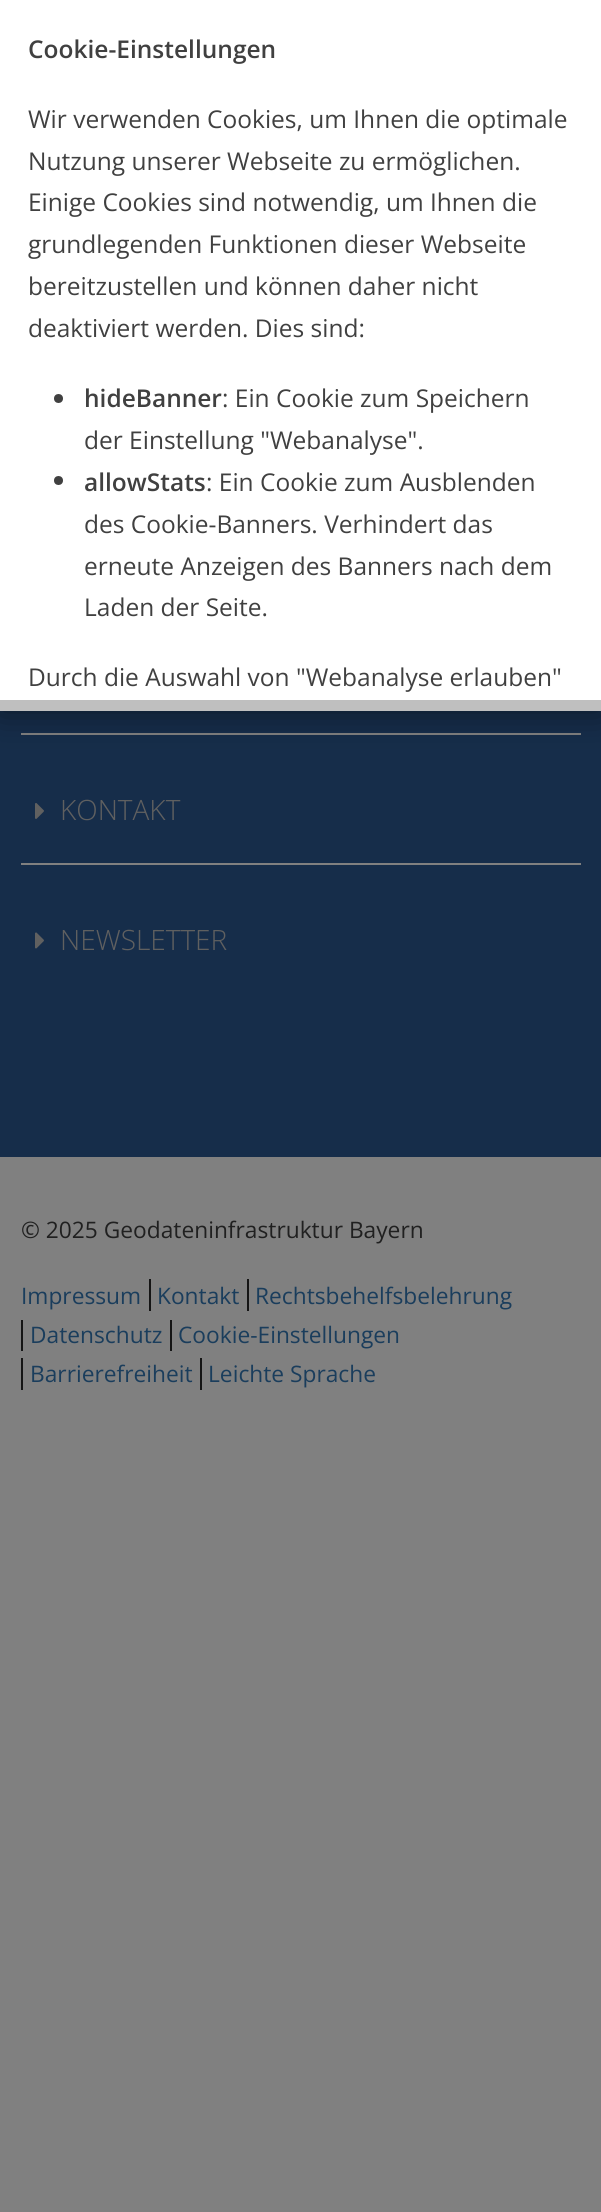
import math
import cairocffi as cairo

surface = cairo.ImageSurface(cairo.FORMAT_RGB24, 601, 2212)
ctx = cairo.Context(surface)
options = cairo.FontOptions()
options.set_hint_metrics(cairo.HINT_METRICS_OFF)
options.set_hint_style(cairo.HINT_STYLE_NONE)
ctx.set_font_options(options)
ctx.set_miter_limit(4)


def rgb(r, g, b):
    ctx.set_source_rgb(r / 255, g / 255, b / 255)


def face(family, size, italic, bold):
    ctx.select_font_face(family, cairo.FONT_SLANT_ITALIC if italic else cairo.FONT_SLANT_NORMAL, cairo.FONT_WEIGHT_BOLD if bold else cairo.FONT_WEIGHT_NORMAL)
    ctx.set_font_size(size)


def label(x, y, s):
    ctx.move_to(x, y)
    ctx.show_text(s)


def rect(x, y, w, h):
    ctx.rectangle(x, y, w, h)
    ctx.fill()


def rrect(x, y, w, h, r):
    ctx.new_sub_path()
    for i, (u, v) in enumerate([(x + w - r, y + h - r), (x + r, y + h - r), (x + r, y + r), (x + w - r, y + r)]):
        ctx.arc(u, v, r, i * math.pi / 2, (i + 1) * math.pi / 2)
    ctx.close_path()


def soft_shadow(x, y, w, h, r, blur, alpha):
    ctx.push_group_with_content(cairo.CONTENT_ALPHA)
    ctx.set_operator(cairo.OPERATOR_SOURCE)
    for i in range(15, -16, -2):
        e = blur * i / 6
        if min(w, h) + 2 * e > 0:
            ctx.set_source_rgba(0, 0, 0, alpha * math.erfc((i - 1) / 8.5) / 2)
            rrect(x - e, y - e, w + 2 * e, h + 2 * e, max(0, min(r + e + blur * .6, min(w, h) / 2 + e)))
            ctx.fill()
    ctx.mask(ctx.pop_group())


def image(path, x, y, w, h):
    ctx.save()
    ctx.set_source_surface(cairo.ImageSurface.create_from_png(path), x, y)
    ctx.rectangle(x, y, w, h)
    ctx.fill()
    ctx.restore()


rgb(128, 128, 128)
ctx.paint()
rgb(22, 45, 74)
rect(0, 711, 601, 446)
rgb(128, 128, 128)
rect(21, 733, 560, 2)
rgb(0, 0, 0)
soft_shadow(0, 0, 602, 711, 0, 17.5, 0.5)
rgb(255, 255, 255)
rect(0, 0, 601, 700)
rgb(191, 191, 191)
rect(0, 700, 601, 11)
face('Open Sans SemiBold', 24.5, 0, 0)
rgb(64, 64, 64)
label(28, 58, 'Cookie-Einstellungen')
face('Open Sans', 24.5, 0, 0)
label(28, 128, 'Wir verwenden Cookies, um Ihnen die optimale')
label(28, 170, 'Nutzung unserer Webseite zu ermöglichen.')
label(28, 211, 'Einige Cookies sind notwendig, um Ihnen die')
label(28, 253, 'grundlegenden Funktionen dieser Webseite')
label(28, 295, 'bereitzustellen und können daher nicht')
label(28, 337, 'deaktiviert werden. Dies sind:')
ctx.new_path()
ctx.arc(58.5, 398.5, 4.5, 0, 2 * math.pi)
ctx.fill()
face('Open Sans SemiBold', 24.5, 0, 0)
label(84, 407, 'hideBanner')
face('Open Sans', 24.5, 0, 0)
label(222, 407, ': Ein Cookie zum Speichern')
label(84, 449, 'der Einstellung "Webanalyse".')
ctx.new_path()
ctx.arc(58.5, 480.5, 4.5, 0, 2 * math.pi)
ctx.fill()
face('Open Sans SemiBold', 24.5, 0, 0)
label(84, 491, 'allowStats')
face('Open Sans', 24.5, 0, 0)
label(206, 491, ': Ein Cookie zum Ausblenden')
label(84, 533, 'des Cookie-Banners. Verhindert das')
label(84, 575, 'erneute Anzeigen des Banners nach dem')
label(84, 616, 'Laden der Seite.')
label(28, 686, 'Durch die Auswahl von "Webanalyse erlauben"')
rgb(128, 128, 128)
rect(21, 863, 560, 2)
image('image0.png', 35, 803, 9, 16)
face('Open Sans Light', 28, 0, 0)
rgb(96, 96, 96)
label(60, 820, 'KONTAKT')
image('image1.png', 35, 932, 9, 17)
label(60, 950, 'NEWSLETTER')
face('Open Sans', 22.75, 0, 0)
rgb(32, 32, 32)
label(21, 1238, '© 2025 Geodateninfrastruktur Bayern')
rgb(26, 61, 92)
label(21, 1304, 'Impressum')
label(157, 1304, 'Kontakt')
rgb(21, 21, 21)
rect(149, 1279, 2, 32)
rgb(26, 61, 92)
label(255, 1304, 'Rechtsbehelfsbelehrung')
rgb(21, 21, 21)
rect(247, 1279, 2, 32)
rgb(26, 61, 92)
label(30, 1343, 'Datenschutz')
rgb(21, 21, 21)
rect(21, 1320, 2, 31)
rgb(26, 61, 92)
label(178, 1343, 'Cookie-Einstellungen')
rgb(21, 21, 21)
rect(170, 1320, 2, 31)
rgb(26, 61, 92)
label(30, 1382, 'Barrierefreiheit')
rgb(21, 21, 21)
rect(21, 1358, 2, 32)
rgb(26, 61, 92)
label(208, 1382, 'Leichte Sprache')
rgb(21, 21, 21)
rect(200, 1358, 2, 32)
surface.write_to_png('render.png')
